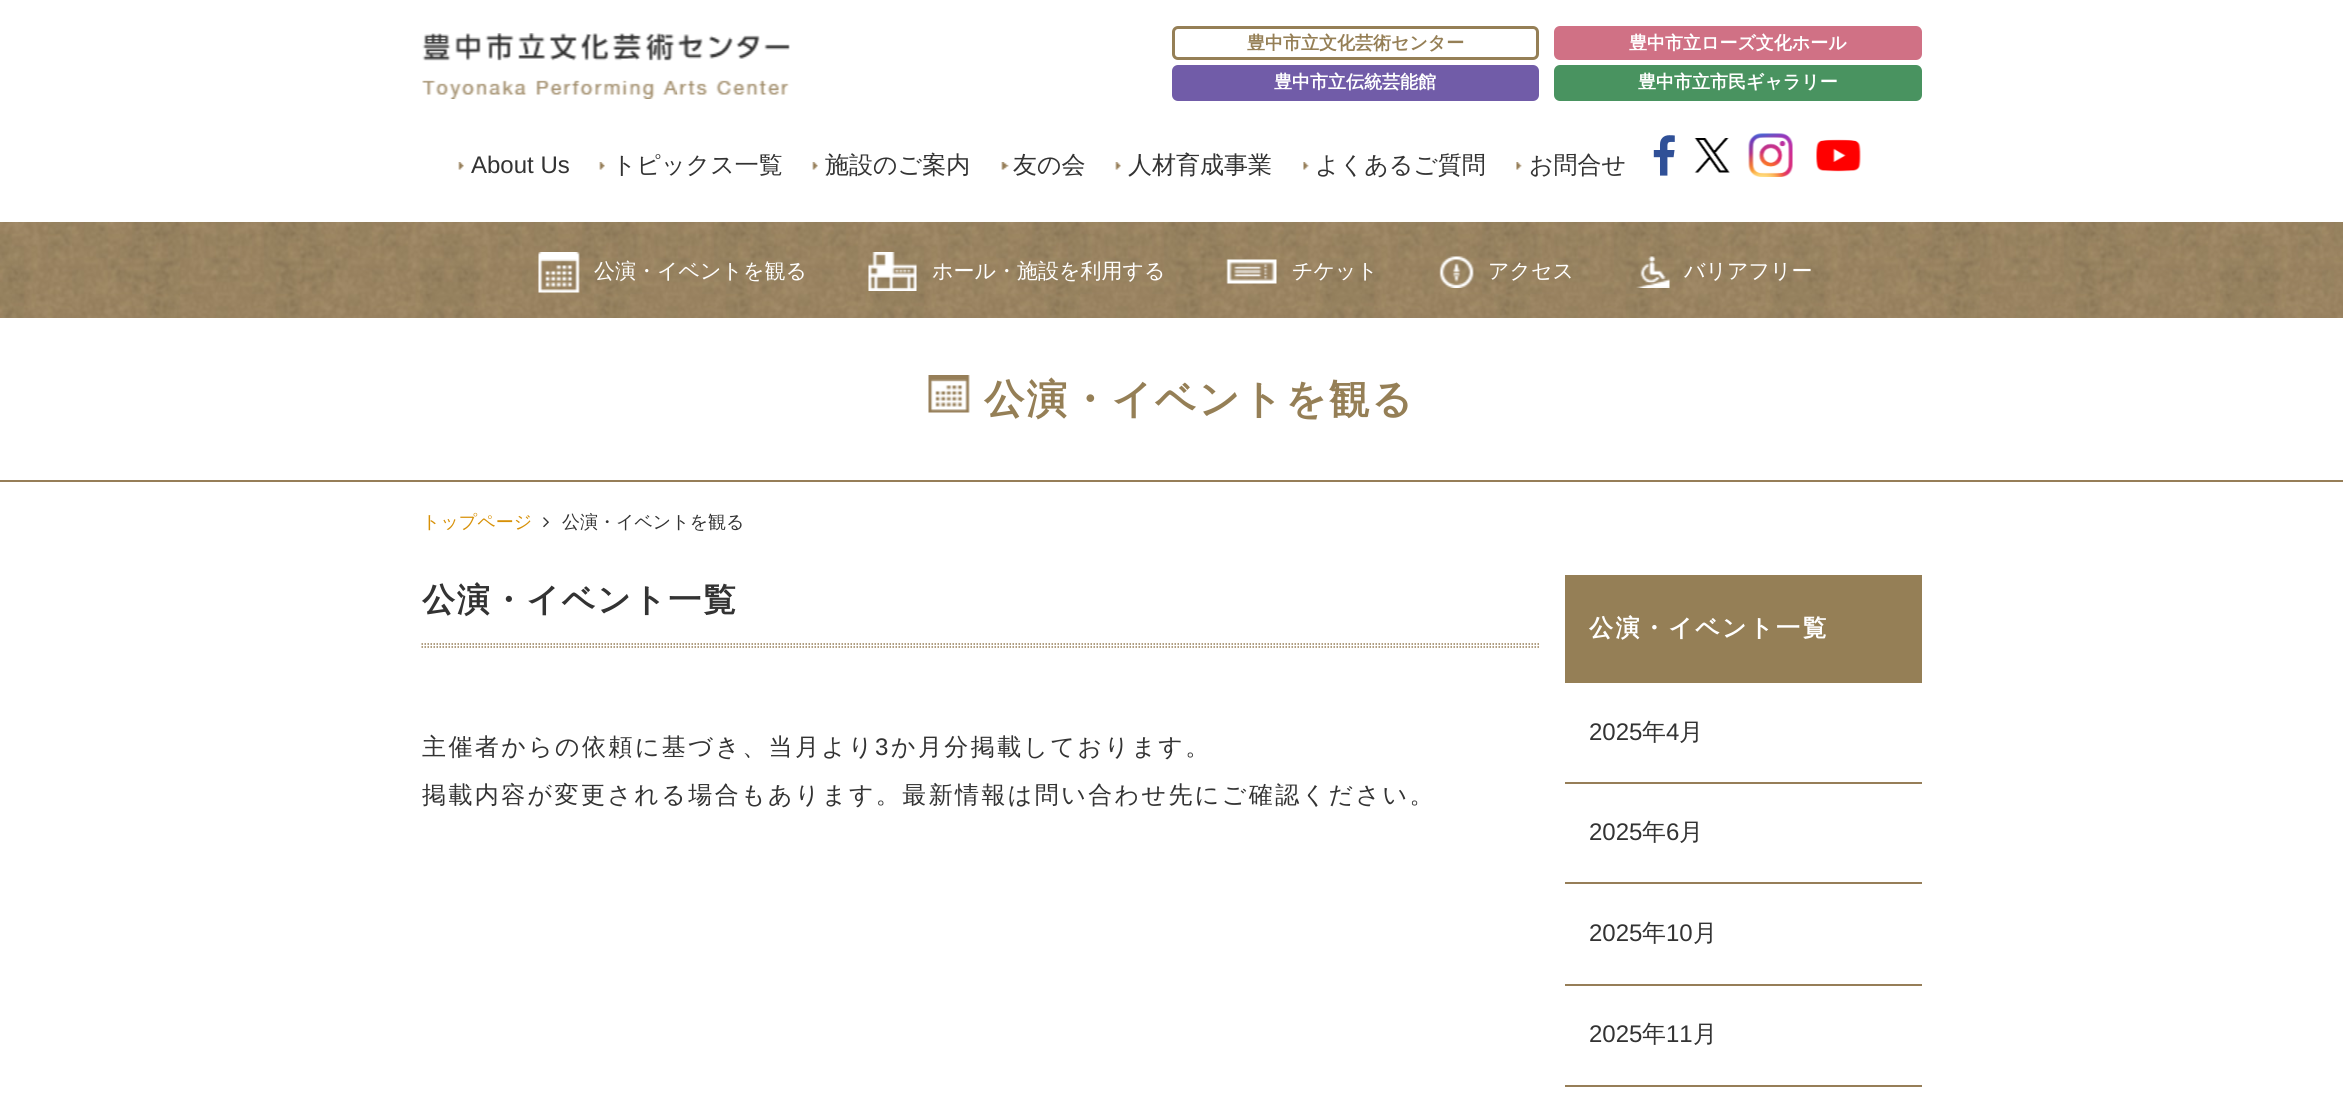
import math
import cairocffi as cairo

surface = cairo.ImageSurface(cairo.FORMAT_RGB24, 2343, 1115)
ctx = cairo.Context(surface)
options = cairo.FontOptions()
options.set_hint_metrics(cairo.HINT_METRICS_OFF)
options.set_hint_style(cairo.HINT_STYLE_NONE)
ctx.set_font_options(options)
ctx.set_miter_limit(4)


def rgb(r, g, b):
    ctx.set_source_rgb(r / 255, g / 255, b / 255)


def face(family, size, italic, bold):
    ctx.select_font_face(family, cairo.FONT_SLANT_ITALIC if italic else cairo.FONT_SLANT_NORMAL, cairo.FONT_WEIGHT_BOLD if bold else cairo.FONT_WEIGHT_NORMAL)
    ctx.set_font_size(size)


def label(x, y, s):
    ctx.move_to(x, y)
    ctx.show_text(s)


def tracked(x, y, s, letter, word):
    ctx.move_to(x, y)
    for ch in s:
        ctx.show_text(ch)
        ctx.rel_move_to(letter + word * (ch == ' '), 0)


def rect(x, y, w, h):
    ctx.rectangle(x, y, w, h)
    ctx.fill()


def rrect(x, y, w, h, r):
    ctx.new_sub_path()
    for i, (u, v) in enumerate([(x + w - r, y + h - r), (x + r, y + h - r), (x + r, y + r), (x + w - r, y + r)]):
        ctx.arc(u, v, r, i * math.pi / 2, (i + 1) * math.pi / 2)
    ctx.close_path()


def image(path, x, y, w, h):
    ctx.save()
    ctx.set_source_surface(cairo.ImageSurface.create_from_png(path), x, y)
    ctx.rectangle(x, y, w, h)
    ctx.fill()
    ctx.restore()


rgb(255, 255, 255)
ctx.paint()
image('image0.png', 422, 33, 368, 66)
rrect(1173.5, 27.5, 364, 31, 4.5)
rgb(149, 127, 86)
ctx.set_line_width(3)
ctx.stroke()
face('WenQuanYi Zen Hei', 18, 0, 1)
label(1247, 49, '豊中市立文化芸術センター')
rgb(208, 113, 133)
rrect(1555.5, 27.5, 365, 31, 4.5)
ctx.fill_preserve()
ctx.stroke()
rgb(255, 255, 255)
label(1629, 49, '豊中市立ローズ文化ホール')
rgb(113, 92, 168)
rrect(1173.5, 66.5, 364, 33, 4.5)
ctx.fill_preserve()
ctx.stroke()
rgb(255, 255, 255)
label(1274, 88, '豊中市立伝統芸能館')
rgb(73, 147, 96)
rrect(1555.5, 66.5, 365, 33, 4.5)
ctx.fill_preserve()
ctx.stroke()
rgb(255, 255, 255)
label(1638, 88, '豊中市立市民ギャラリー')
image('image1.png', 458, 162, 6, 8)
face('Liberation Sans', 24, 0, 0)
rgb(51, 51, 51)
label(471, 173, 'About Us')
image('image1.png', 599, 162, 6, 8)
face('WenQuanYi Zen Hei Medium', 24, 0, 0)
label(612, 173, 'トピックス一覧')
image('image2.png', 812, 162, 6, 8)
label(825, 173, '施設のご案内')
image('image3.png', 1001, 162, 8, 8)
label(1013, 173, '友の会')
image('image2.png', 1115, 162, 6, 8)
label(1128, 173, '人材育成事業')
image('image4.png', 1303, 162, 6, 8)
label(1315, 173, 'よくあるご質問')
image('image5.png', 1516, 162, 6, 8)
label(1529, 173, 'お問合せ')
image('image6.png', 1653, 135, 22, 41)
image('image7.png', 1694, 138, 36, 35)
image('image8.png', 1748, 133, 45, 44)
image('image9.png', 1816, 139, 45, 33)
image('image10.png', 0, 222, 2343, 96)
image('image11.png', 538, 252, 42, 41)
face('WenQuanYi Zen Hei Medium', 21, 0, 0)
rgb(255, 255, 255)
label(594, 278, '公演・イベントを観る')
image('image12.png', 868, 252, 49, 39)
label(932, 278, 'ホール・施設を利用する')
image('image13.png', 1226, 259, 51, 25)
label(1292, 278, 'チケット')
image('image14.png', 1439, 256, 35, 32)
label(1488, 278, 'アクセス')
image('image15.png', 1636, 256, 34, 32)
label(1684, 278, 'バリアフリー')
rgb(150, 126, 88)
rect(0, 480, 2343, 2)
image('image16.png', 928, 375, 42, 38)
face('WenQuanYi Zen Hei', 40.5, 0, 1)
rgb(149, 127, 86)
tracked(984, 413, '公演・イベントを観る', 2, 0)
face('WenQuanYi Zen Hei Medium', 18, 0, 0)
rgb(215, 144, 6)
label(422, 528, 'トップページ')
image('image17.png', 543, 517, 6, 11)
rgb(51, 51, 51)
label(562, 528, '公演・イベントを観る')
ctx.new_path()
ctx.move_to(421.5, 647)
ctx.line_to(1540.5, 647)
rgb(150, 126, 88)
ctx.set_line_width(1.5)
ctx.set_dash([1.5, 1.5])
ctx.stroke()
ctx.new_path()
ctx.move_to(421.5, 644)
ctx.line_to(1540.5, 644)
ctx.stroke()
face('WenQuanYi Zen Hei', 33, 0, 1)
rgb(51, 51, 51)
tracked(422, 611, '公演・イベント一覧', 1.75, 0)
face('WenQuanYi Zen Hei Medium', 24, 0, 0)
tracked(422, 755, '主催者からの依頼に基づき、当月より', 2.4, 0)
face('Liberation Sans', 24, 0, 0)
tracked(875, 755, '3', 2.4, 0)
face('WenQuanYi Zen Hei Medium', 24, 0, 0)
tracked(891, 755, 'か月分掲載しております。', 2.4, 0)
tracked(422, 803, '掲載内容が変更される場合もあります。最新情報は問い合わせ先にご確認ください。', 2.4, 0)
rgb(149, 127, 86)
rect(1565, 575, 357, 108)
face('WenQuanYi Zen Hei', 24, 0, 1)
rgb(255, 255, 255)
tracked(1589, 636, '公演・イベント一覧', 2.4, 0)
rgb(150, 126, 88)
rect(1565, 782, 357, 2)
face('Liberation Sans', 24, 0, 0)
rgb(51, 51, 51)
label(1589, 740, '2025')
face('WenQuanYi Zen Hei Medium', 24, 0, 0)
label(1642, 740, '年')
face('Liberation Sans', 24, 0, 0)
label(1666, 740, '4')
face('WenQuanYi Zen Hei Medium', 24, 0, 0)
label(1679, 740, '月')
rgb(150, 126, 88)
rect(1565, 882, 357, 2)
face('Liberation Sans', 24, 0, 0)
rgb(51, 51, 51)
label(1589, 840, '2025')
face('WenQuanYi Zen Hei Medium', 24, 0, 0)
label(1642, 840, '年')
face('Liberation Sans', 24, 0, 0)
label(1666, 840, '6')
face('WenQuanYi Zen Hei Medium', 24, 0, 0)
label(1679, 840, '月')
rgb(150, 126, 88)
rect(1565, 984, 357, 2)
face('Liberation Sans', 24, 0, 0)
rgb(51, 51, 51)
label(1589, 941, '2025')
face('WenQuanYi Zen Hei Medium', 24, 0, 0)
label(1642, 941, '年')
face('Liberation Sans', 24, 0, 0)
label(1666, 941, '10')
face('WenQuanYi Zen Hei Medium', 24, 0, 0)
label(1693, 941, '月')
rgb(150, 126, 88)
rect(1565, 1085, 357, 2)
face('Liberation Sans', 24, 0, 0)
rgb(51, 51, 51)
label(1589, 1042, '2025')
face('WenQuanYi Zen Hei Medium', 24, 0, 0)
label(1642, 1042, '年')
face('Liberation Sans', 24, 0, 0)
label(1666, 1042, '11')
face('WenQuanYi Zen Hei Medium', 24, 0, 0)
label(1693, 1042, '月')
surface.write_to_png('render.png')
